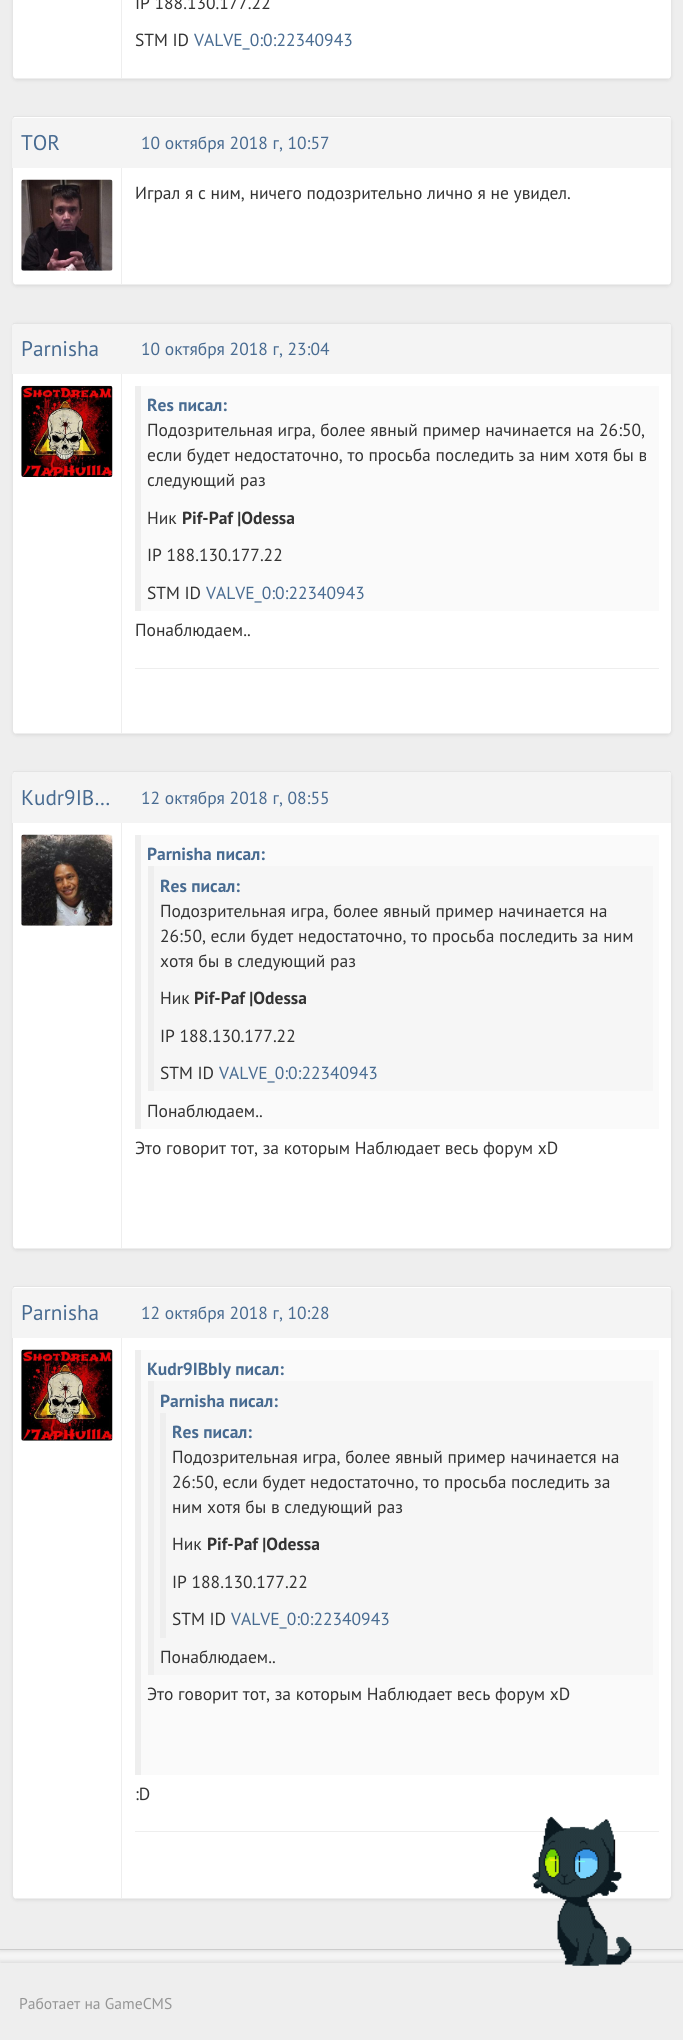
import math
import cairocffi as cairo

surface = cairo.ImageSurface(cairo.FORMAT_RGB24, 683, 2040)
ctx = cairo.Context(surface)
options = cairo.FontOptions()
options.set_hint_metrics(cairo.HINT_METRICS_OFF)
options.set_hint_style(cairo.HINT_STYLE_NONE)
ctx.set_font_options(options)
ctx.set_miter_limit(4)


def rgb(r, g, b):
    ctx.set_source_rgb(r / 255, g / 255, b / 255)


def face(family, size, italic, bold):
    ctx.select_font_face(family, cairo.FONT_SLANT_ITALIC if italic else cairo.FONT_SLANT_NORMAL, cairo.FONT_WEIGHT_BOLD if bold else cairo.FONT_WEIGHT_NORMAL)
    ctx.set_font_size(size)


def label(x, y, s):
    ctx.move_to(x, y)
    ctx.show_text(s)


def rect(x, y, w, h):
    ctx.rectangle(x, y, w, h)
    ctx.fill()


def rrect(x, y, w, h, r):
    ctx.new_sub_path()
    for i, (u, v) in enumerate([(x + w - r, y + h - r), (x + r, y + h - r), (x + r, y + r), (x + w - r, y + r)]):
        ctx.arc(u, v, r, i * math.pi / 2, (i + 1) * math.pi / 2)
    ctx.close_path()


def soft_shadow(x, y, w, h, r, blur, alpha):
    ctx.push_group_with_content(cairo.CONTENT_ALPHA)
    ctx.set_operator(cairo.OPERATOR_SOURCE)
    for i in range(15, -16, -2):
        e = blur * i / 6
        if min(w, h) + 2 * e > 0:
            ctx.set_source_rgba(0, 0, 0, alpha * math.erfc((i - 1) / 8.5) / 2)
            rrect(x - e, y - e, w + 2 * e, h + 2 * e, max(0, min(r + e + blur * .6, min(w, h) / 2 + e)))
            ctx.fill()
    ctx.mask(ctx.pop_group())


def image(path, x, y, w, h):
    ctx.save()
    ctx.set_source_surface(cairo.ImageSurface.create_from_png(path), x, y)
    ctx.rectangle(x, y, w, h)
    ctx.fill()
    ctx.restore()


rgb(245, 245, 245)
ctx.paint()
rgb(0, 0, 0)
soft_shadow(0, -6, 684, 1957, 0, 2, 0.1)
rgb(238, 238, 238)
rect(0, 0, 683, 1949)
rgb(204, 204, 204)
rect(0, 1949, 683, 1)
rgb(0, 0, 0)
soft_shadow(13, -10, 658, 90, 4, 2, 0.1)
rgb(255, 255, 255)
rrect(13, -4, 658, 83, 4)
ctx.fill()
rgb(238, 238, 238)
rect(121, 0, 1, 78)
face('PT Sans', 17.5, 0, 0)
rgb(51, 51, 51)
label(135, 9, 'IP 188.130.177.22')
label(135, 46, 'STM ID')
rgb(72, 107, 145)
label(194, 46, 'VALVE_0:0:22340943')
rgb(238, 238, 238)
ctx.new_path()
ctx.move_to(670, 78)
ctx.line_to(668, 79)
ctx.line_to(16, 79)
ctx.line_to(14, 78)
ctx.close_path()
ctx.fill()
rgb(0, 0, 0)
soft_shadow(13, 118, 658, 168, 4, 2, 0.1)
rgb(255, 255, 255)
rrect(13, 116, 658, 169, 4)
ctx.fill()
rgb(228, 228, 228)
rect(13, 116, 658, 1)
rgb(244, 244, 244)
ctx.new_path()
ctx.move_to(16, 118)
ctx.line_to(133, 118)
ctx.line_to(133, 168)
ctx.line_to(12, 168)
ctx.line_to(12, 120)
ctx.curve_to(12, 119, 14, 118, 16, 118)
ctx.close_path()
ctx.fill()
face('PT Sans', 21.25, 0, 0)
rgb(72, 107, 145)
label(21, 150, 'TOR')
rgb(244, 244, 244)
ctx.new_path()
ctx.move_to(671, 119)
ctx.line_to(671, 168)
ctx.line_to(123, 168)
ctx.line_to(123, 118)
ctx.line_to(668, 118)
ctx.curve_to(669, 118, 670, 118, 671, 119)
ctx.close_path()
ctx.fill()
face('PT Sans', 17.5, 0, 0)
rgb(72, 107, 145)
label(141, 149, '10 октября 2018 г, 10:57')
rgb(238, 238, 238)
rect(121, 168, 1, 116)
image('image0.png', 21, 179, 92, 92)
rgb(51, 51, 51)
label(135, 199, 'Играл я с ним, ничего подозрительно лично я не увидел.')
rgb(238, 238, 238)
ctx.new_path()
ctx.move_to(16, 285)
ctx.line_to(668, 285)
ctx.line_to(670, 284)
ctx.line_to(14, 284)
ctx.close_path()
ctx.fill()
rgb(0, 0, 0)
soft_shadow(13, 324, 658, 411, 4, 2, 0.1)
rgb(255, 255, 255)
rrect(13, 323, 658, 411, 4)
ctx.fill()
rgb(228, 228, 228)
rect(13, 323, 658, 1)
rgb(244, 244, 244)
ctx.new_path()
ctx.move_to(16, 324)
ctx.line_to(133, 324)
ctx.line_to(133, 374)
ctx.line_to(12, 374)
ctx.line_to(12, 326)
ctx.curve_to(12, 325, 14, 324, 16, 324)
ctx.close_path()
ctx.fill()
face('PT Sans', 21.25, 0, 0)
rgb(72, 107, 145)
label(21, 356, 'Parnisha')
rgb(244, 244, 244)
ctx.new_path()
ctx.move_to(671, 325)
ctx.line_to(671, 374)
ctx.line_to(123, 374)
ctx.line_to(123, 324)
ctx.line_to(668, 324)
ctx.curve_to(669, 324, 670, 324, 671, 325)
ctx.close_path()
ctx.fill()
face('PT Sans', 17.5, 0, 0)
rgb(72, 107, 145)
label(141, 355, '10 октября 2018 г, 23:04')
rgb(238, 238, 238)
rect(121, 374, 1, 359)
image('image1.png', 21, 385, 92, 92)
rgb(250, 250, 250)
rect(141, 386, 518, 225)
rgb(238, 238, 238)
rect(135, 386, 6, 225)
face('PT Sans', 17.5, 0, 1)
rgb(72, 107, 145)
label(147, 411, 'Res писал:')
face('PT Sans', 17.5, 0, 0)
rgb(51, 51, 51)
label(147, 436, 'Подозрительная игра, более явный пример начинается на 26:50,')
label(147, 461, 'если будет недостаточно, то просьба последить за ним хотя бы в')
label(147, 486, 'следующий раз')
label(147, 524, 'Ник')
face('PT Sans', 17.5, 0, 1)
label(182, 524, 'Pif-Paf |Odessa')
face('PT Sans', 17.5, 0, 0)
label(147, 561, 'IP 188.130.177.22')
label(147, 599, 'STM ID')
rgb(72, 107, 145)
label(206, 599, 'VALVE_0:0:22340943')
rgb(51, 51, 51)
label(135, 636, 'Понаблюдаем..')
rgb(238, 238, 238)
rect(135, 668, 524, 1)
ctx.new_path()
ctx.move_to(670, 733)
ctx.line_to(668, 734)
ctx.line_to(16, 734)
ctx.line_to(14, 733)
ctx.close_path()
ctx.fill()
rgb(0, 0, 0)
soft_shadow(13, 773, 658, 477, 4, 2, 0.1)
rgb(255, 255, 255)
rrect(13, 771, 658, 478, 4)
ctx.fill()
rgb(228, 228, 228)
rect(13, 771, 658, 1)
rgb(244, 244, 244)
ctx.new_path()
ctx.move_to(16, 772)
ctx.line_to(133, 772)
ctx.line_to(133, 823)
ctx.line_to(12, 823)
ctx.line_to(12, 775)
ctx.curve_to(12, 774, 14, 772, 16, 772)
ctx.close_path()
ctx.fill()
face('PT Sans', 21.25, 0, 0)
rgb(72, 107, 145)
label(21, 805, 'Kudr9IB…')
rgb(244, 244, 244)
ctx.new_path()
ctx.move_to(671, 774)
ctx.line_to(671, 823)
ctx.line_to(123, 823)
ctx.line_to(123, 772)
ctx.line_to(668, 772)
ctx.curve_to(669, 772, 670, 773, 671, 774)
ctx.close_path()
ctx.fill()
face('PT Sans', 17.5, 0, 0)
rgb(72, 107, 145)
label(141, 804, '12 октября 2018 г, 08:55')
rgb(238, 238, 238)
rect(121, 823, 1, 425)
image('image2.png', 21, 834, 92, 92)
rgb(250, 250, 250)
rect(141, 835, 518, 294)
rgb(238, 238, 238)
rect(135, 835, 6, 294)
face('PT Sans', 17.5, 0, 1)
rgb(72, 107, 145)
label(147, 860, 'Parnisha писал:')
rgb(246, 246, 246)
rect(154, 866, 499, 225)
rgb(238, 238, 238)
rect(148, 866, 6, 225)
rgb(72, 107, 145)
label(160, 892, 'Res писал:')
face('PT Sans', 17.5, 0, 0)
rgb(51, 51, 51)
label(160, 917, 'Подозрительная игра, более явный пример начинается на')
label(160, 942, '26:50, если будет недостаточно, то просьба последить за ним')
label(160, 967, 'хотя бы в следующий раз')
label(160, 1004, 'Ник')
face('PT Sans', 17.5, 0, 1)
label(194, 1004, 'Pif-Paf |Odessa')
face('PT Sans', 17.5, 0, 0)
label(160, 1042, 'IP 188.130.177.22')
label(160, 1079, 'STM ID')
rgb(72, 107, 145)
label(219, 1079, 'VALVE_0:0:22340943')
rgb(51, 51, 51)
label(147, 1117, 'Понаблюдаем..')
label(135, 1154, 'Это говорит тот, за которым Наблюдает весь форум xD')
rgb(238, 238, 238)
ctx.new_path()
ctx.move_to(670, 1248)
ctx.line_to(668, 1249)
ctx.line_to(16, 1249)
ctx.line_to(14, 1248)
ctx.close_path()
ctx.fill()
rgb(0, 0, 0)
soft_shadow(13, 1288, 658, 612, 4, 2, 0.1)
rgb(255, 255, 255)
rrect(13, 1286, 658, 613, 4)
ctx.fill()
rgb(228, 228, 228)
rect(13, 1286, 658, 1)
rgb(244, 244, 244)
ctx.new_path()
ctx.move_to(16, 1288)
ctx.line_to(133, 1288)
ctx.line_to(133, 1338)
ctx.line_to(12, 1338)
ctx.line_to(12, 1290)
ctx.curve_to(12, 1289, 14, 1288, 16, 1288)
ctx.close_path()
ctx.fill()
face('PT Sans', 21.25, 0, 0)
rgb(72, 107, 145)
label(21, 1320, 'Parnisha')
rgb(244, 244, 244)
ctx.new_path()
ctx.move_to(671, 1289)
ctx.line_to(671, 1338)
ctx.line_to(123, 1338)
ctx.line_to(123, 1288)
ctx.line_to(668, 1288)
ctx.curve_to(669, 1288, 670, 1288, 671, 1289)
ctx.close_path()
ctx.fill()
face('PT Sans', 17.5, 0, 0)
rgb(72, 107, 145)
label(141, 1319, '12 октября 2018 г, 10:28')
rgb(238, 238, 238)
rect(121, 1338, 1, 560)
image('image3.png', 21, 1349, 92, 92)
rgb(250, 250, 250)
rect(141, 1350, 518, 425)
rgb(238, 238, 238)
rect(135, 1350, 6, 425)
face('PT Sans', 17.5, 0, 1)
rgb(72, 107, 145)
label(147, 1375, 'Kudr9IBbIy писал:')
rgb(246, 246, 246)
rect(154, 1381, 499, 294)
rgb(238, 238, 238)
rect(148, 1381, 6, 294)
rgb(72, 107, 145)
label(160, 1407, 'Parnisha писал:')
rgb(238, 238, 238)
rect(160, 1413, 6, 225)
rgb(72, 107, 145)
label(172, 1438, 'Res писал:')
face('PT Sans', 17.5, 0, 0)
rgb(51, 51, 51)
label(172, 1463, 'Подозрительная игра, более явный пример начинается на')
label(172, 1488, '26:50, если будет недостаточно, то просьба последить за')
label(172, 1513, 'ним хотя бы в следующий раз')
label(172, 1550, 'Ник')
face('PT Sans', 17.5, 0, 1)
label(207, 1550, 'Pif-Paf |Odessa')
face('PT Sans', 17.5, 0, 0)
label(172, 1588, 'IP 188.130.177.22')
label(172, 1625, 'STM ID')
rgb(72, 107, 145)
label(231, 1625, 'VALVE_0:0:22340943')
rgb(51, 51, 51)
label(160, 1663, 'Понаблюдаем..')
label(147, 1700, 'Это говорит тот, за которым Наблюдает весь форум xD')
label(135, 1800, ':D')
rgb(238, 238, 238)
rect(135, 1831, 524, 1)
ctx.new_path()
ctx.move_to(670, 1898)
ctx.line_to(668, 1899)
ctx.line_to(16, 1899)
ctx.line_to(14, 1898)
ctx.close_path()
ctx.fill()
rgb(0, 0, 0)
soft_shadow(0, 1961, 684, 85, 0, 2, 0.1)
rgb(238, 238, 238)
rect(0, 1963, 683, 77)
image('image4.png', 532, 1816, 100, 150)
face('PT Sans', 15.6, 0, 0)
rgb(149, 149, 149)
label(19, 2009, 'Работает на GameCMS')
surface.write_to_png('render.png')
